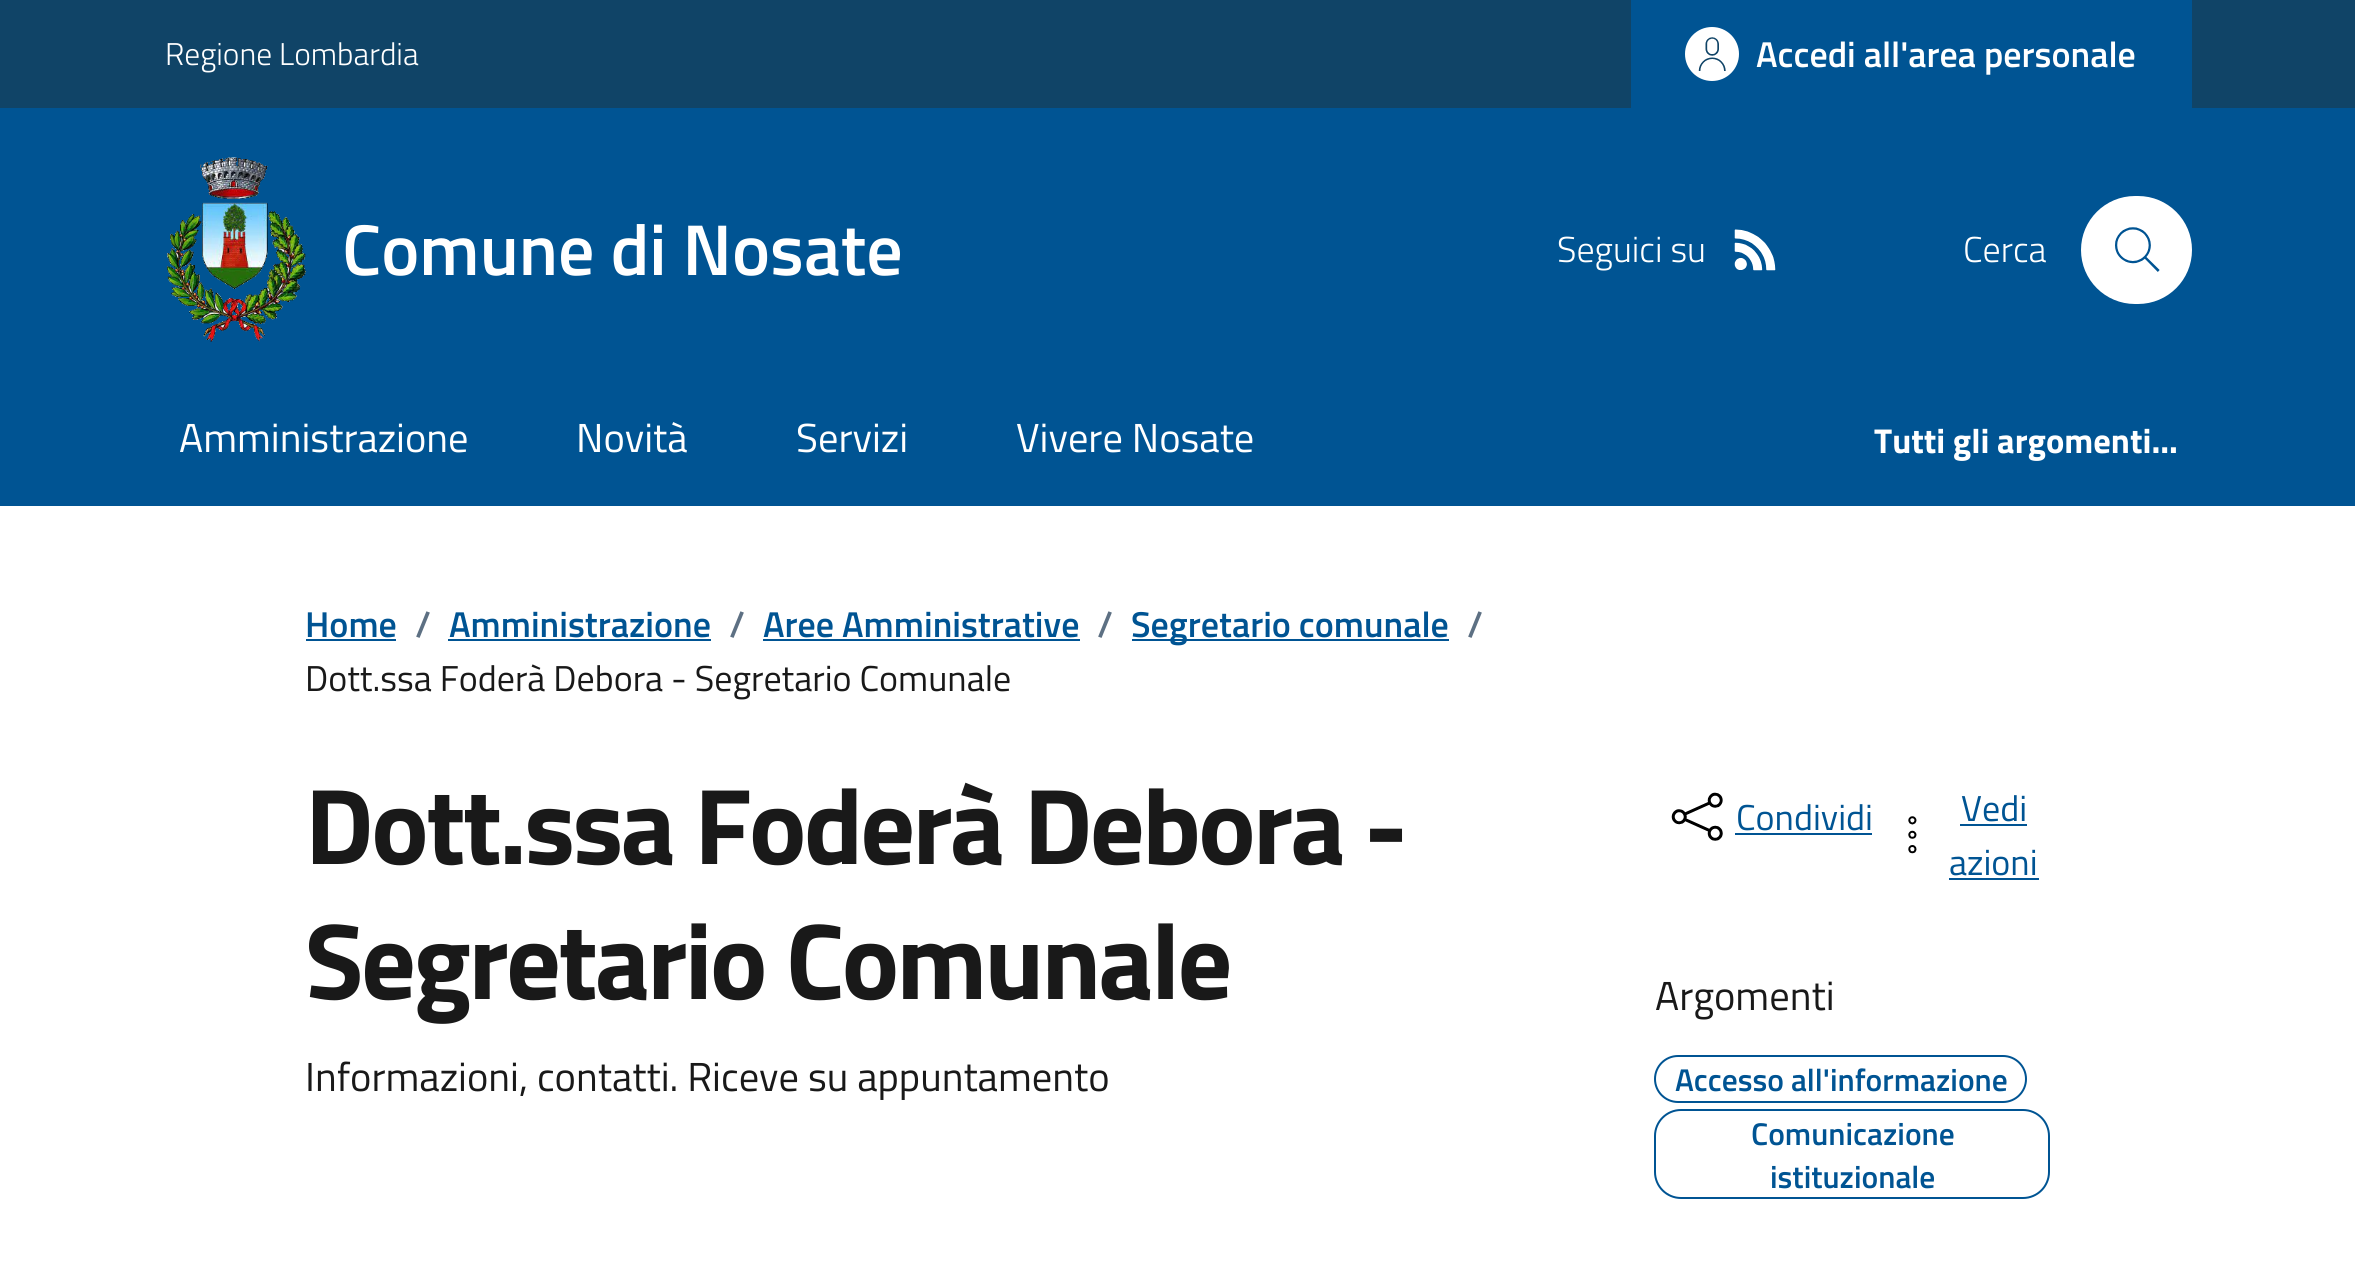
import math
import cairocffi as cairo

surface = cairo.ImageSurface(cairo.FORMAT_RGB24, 2355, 1276)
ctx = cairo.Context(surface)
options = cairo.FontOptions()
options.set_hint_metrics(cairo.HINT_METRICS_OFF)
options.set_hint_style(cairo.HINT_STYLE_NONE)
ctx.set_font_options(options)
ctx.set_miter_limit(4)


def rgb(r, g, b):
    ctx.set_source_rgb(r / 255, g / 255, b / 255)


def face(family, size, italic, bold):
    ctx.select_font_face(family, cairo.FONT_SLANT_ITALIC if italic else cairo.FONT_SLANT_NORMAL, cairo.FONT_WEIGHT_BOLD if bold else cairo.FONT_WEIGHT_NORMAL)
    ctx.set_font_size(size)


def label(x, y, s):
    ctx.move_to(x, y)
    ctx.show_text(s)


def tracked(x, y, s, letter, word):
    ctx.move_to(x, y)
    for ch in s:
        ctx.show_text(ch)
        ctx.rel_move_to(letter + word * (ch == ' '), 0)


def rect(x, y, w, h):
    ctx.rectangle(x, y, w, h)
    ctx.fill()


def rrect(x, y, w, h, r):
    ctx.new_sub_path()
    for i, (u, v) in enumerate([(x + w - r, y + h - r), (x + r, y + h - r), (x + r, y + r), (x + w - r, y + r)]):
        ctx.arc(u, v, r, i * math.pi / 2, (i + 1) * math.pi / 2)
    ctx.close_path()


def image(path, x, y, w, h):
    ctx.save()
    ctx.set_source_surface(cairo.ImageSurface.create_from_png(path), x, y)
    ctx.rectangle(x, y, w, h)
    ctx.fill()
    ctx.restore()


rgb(255, 255, 255)
ctx.paint()
rgb(16, 68, 103)
rect(0, 0, 2355, 108)
face('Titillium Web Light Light', 31.5, 0, 0)
rgb(255, 255, 255)
label(165, 65, 'Regione Lombardia')
rgb(0, 84, 147)
rect(1631, 0, 561, 108)
rgb(255, 255, 255)
ctx.new_path()
ctx.arc(1712, 54, 27, 0, 2 * math.pi)
ctx.fill()
image('image0.png', 1698, 37, 28, 34)
face('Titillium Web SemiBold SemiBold', 36, 0, 0)
label(1756, 67, 'Accedi all\'area personale')
rgb(0, 84, 147)
rect(0, 108, 2355, 398)
image('image1.png', 167, 157, 139, 185)
face('Titillium Web SemiBold SemiBold', 72, 0, 0)
rgb(255, 255, 255)
label(342, 275, 'Comune di Nosate')
face('Titillium Web Light Light', 36, 0, 0)
label(1557, 262, 'Seguici su')
image('image2.png', 1734, 229, 42, 42)
label(1963, 262, 'Cerca')
rrect(2081, 196, 111, 108, 54)
ctx.fill()
image('image3.png', 2115, 227, 45, 45)
face('Titillium Web', 40.5, 0, 0)
label(179, 452, 'Amministrazione')
label(576, 452, 'Novità')
label(796, 452, 'Servizi')
label(1016, 452, 'Vivere Nosate')
face('Titillium Web', 34.5, 0, 1)
label(1874, 453, 'Tutti gli argomenti...')
face('Titillium Web SemiBold SemiBold', 36, 0, 0)
rgb(0, 84, 147)
label(305, 637, 'Home')
rect(306, 639, 90, 2)
rgb(93, 112, 131)
label(415, 637, '/')
rgb(0, 84, 147)
label(449, 637, 'Amministrazione')
rect(448, 639, 263, 2)
rgb(93, 112, 131)
label(729, 637, '/')
rgb(0, 84, 147)
label(763, 637, 'Aree Amministrative')
rect(763, 639, 317, 2)
rgb(93, 112, 131)
label(1097, 637, '/')
rgb(0, 84, 147)
rect(1132, 639, 317, 2)
label(1131, 637, 'Segretario comunale')
rgb(93, 112, 131)
label(1467, 637, '/')
face('Titillium Web', 36, 0, 0)
rgb(25, 25, 25)
label(305, 691, 'Dott.ssa Foderà Debora - Segretario Comunale')
face('Titillium Web', 108, 0, 1)
tracked(305, 864, 'Dott.ssa Foderà Debora -', -2.7, 0)
tracked(305, 999, 'Segretario Comunale', -2.7, 0)
face('Titillium Web', 40.5, 0, 0)
label(305, 1091, 'Informazioni, contatti. Riceve su appuntamento')
image('image4.png', 1671, 792, 52, 49)
face('Titillium Web', 36, 0, 0)
rgb(0, 84, 147)
label(1736, 830, 'Condividi')
rect(1735, 833, 137, 2)
image('image5.png', 1908, 816, 9, 38)
label(1961, 821, 'Vedi')
rect(1960, 824, 67, 2)
label(1949, 875, 'azioni')
rect(1949, 878, 90, 2)
face('Titillium Web', 40.5, 0, 0)
rgb(25, 25, 25)
label(1655, 1010, 'Argomenti')
rrect(1655, 1056, 371, 46, 23)
rgb(0, 84, 147)
ctx.stroke()
face('Titillium Web SemiBold SemiBold', 31.5, 0, 0)
label(1675, 1091, 'Accesso all\'informazione')
rrect(1655, 1110, 394, 88, 26)
ctx.stroke()
label(1751, 1145, 'Comunicazione')
label(1770, 1188, 'istituzionale')
surface.write_to_png('render.png')
